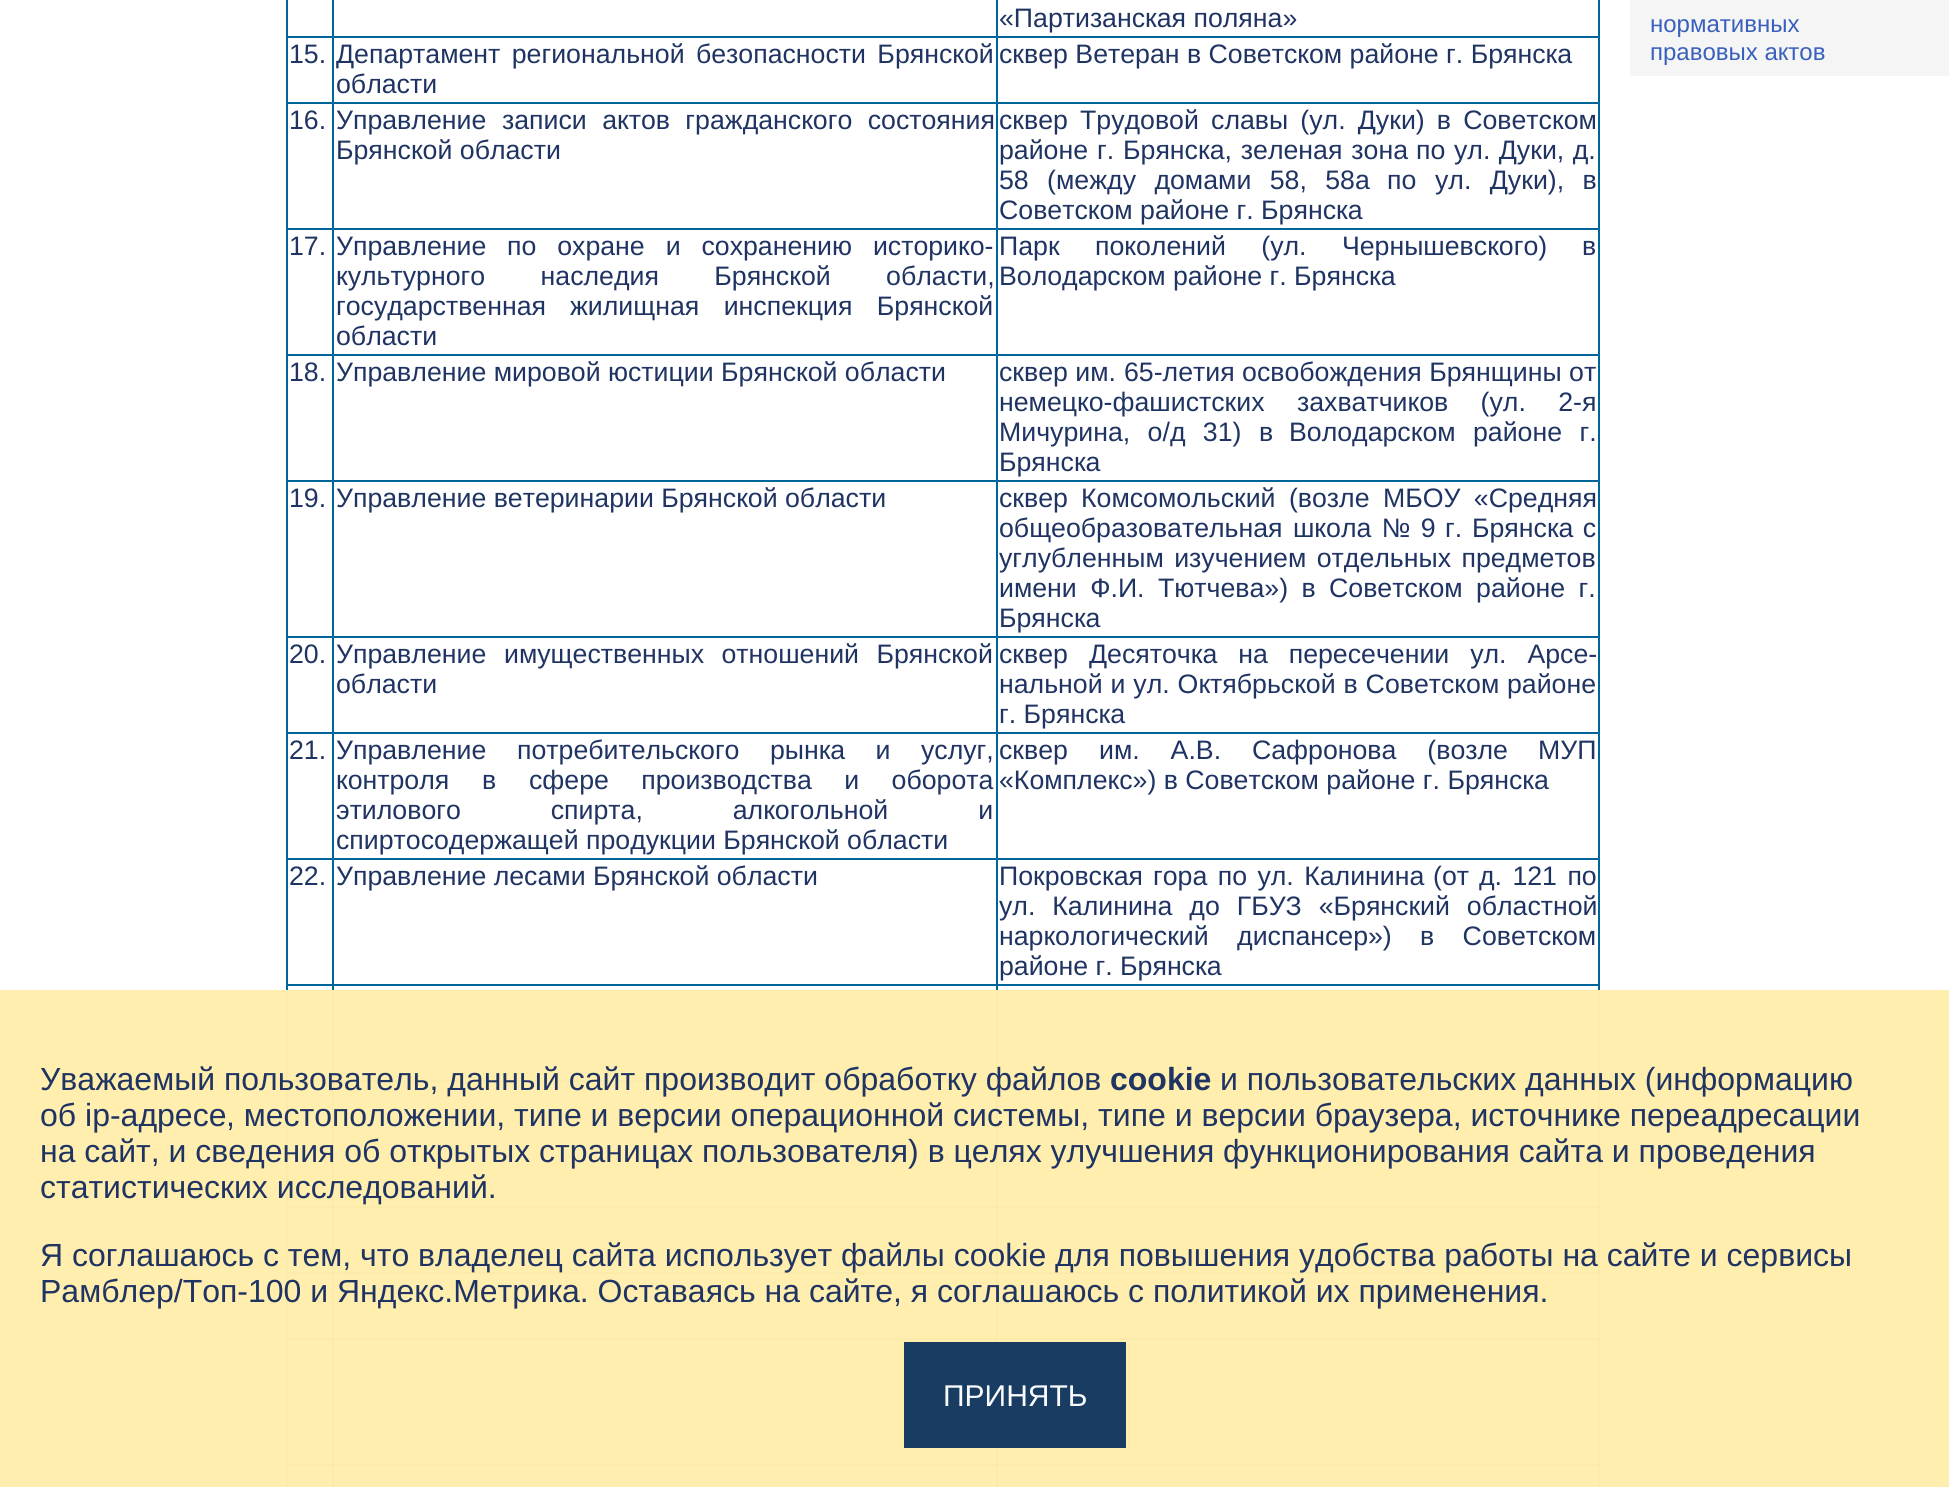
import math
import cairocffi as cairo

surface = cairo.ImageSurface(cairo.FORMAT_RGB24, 1949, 1487)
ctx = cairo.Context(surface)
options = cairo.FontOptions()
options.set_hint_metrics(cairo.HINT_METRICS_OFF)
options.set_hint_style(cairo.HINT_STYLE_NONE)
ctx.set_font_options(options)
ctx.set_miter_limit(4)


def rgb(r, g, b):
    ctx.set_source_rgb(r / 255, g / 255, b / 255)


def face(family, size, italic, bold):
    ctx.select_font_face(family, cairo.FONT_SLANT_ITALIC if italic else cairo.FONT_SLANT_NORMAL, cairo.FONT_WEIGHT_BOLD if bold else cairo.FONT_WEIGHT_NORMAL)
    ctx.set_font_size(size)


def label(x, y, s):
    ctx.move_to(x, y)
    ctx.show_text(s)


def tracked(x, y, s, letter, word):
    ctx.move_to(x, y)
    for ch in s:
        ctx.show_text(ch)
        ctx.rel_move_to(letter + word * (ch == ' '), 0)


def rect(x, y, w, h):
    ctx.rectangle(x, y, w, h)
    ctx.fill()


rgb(255, 255, 255)
ctx.paint()
rgb(255, 238, 173)
rect(0, 990, 1949, 497)
rgb(0, 102, 153)
rect(286, 0, 1314, 990)
rgb(250, 235, 171)
rect(286, 990, 1314, 497)
rgb(255, 255, 255)
rect(288, 0, 44, 36)
rect(334, 0, 662, 36)
rect(998, 0, 600, 36)
face('Liberation Sans', 26.7, 0, 0)
rgb(32, 52, 99)
label(999, 27, '«Партизанская поляна»')
rgb(255, 255, 255)
rect(288, 38, 44, 64)
rgb(32, 52, 99)
label(289, 63, '15.')
rgb(255, 255, 255)
rect(334, 38, 662, 64)
rgb(32, 52, 99)
tracked(336, 63, 'Департамент региональной безопасности Брянской', 0, 4)
label(336, 93, 'области')
rgb(255, 255, 255)
rect(998, 38, 600, 64)
rgb(32, 52, 99)
label(999, 63, 'сквер Ветеран в Советском районе г. Брянска')
rgb(255, 255, 255)
rect(288, 104, 44, 124)
rgb(32, 52, 99)
label(289, 129, '16.')
rgb(255, 255, 255)
rect(334, 104, 662, 124)
rgb(32, 52, 99)
label(336, 129, 'Управление')
tracked(502, 129, 'записи актов гражданского состояния', 0, 8)
label(336, 159, 'Брянской области')
rgb(255, 255, 255)
rect(998, 104, 600, 124)
rgb(32, 52, 99)
label(999, 129, 'сквер')
tracked(1080, 129, 'Трудовой славы (ул. Дуки) в Советском', 0, 4.75)
tracked(999, 159, 'районе г. Брянска, зеленая зона', 0, 1.5)
label(1416, 159, 'по')
tracked(1454, 159, 'ул. Дуки, д.', 0, 1)
tracked(999, 189, '58 (между домами 58, 58а', 0, 11)
label(1387, 189, 'по')
tracked(1435, 189, 'ул. Дуки), в', 0, 11)
label(999, 219, 'Советском районе г. Брянска')
rgb(255, 255, 255)
rect(288, 230, 44, 124)
rgb(32, 52, 99)
label(289, 255, '17.')
rgb(255, 255, 255)
rect(334, 230, 662, 124)
rgb(32, 52, 99)
label(336, 255, 'Управление')
tracked(507, 255, 'по охране и сохранению историко-', 0, 13.5)
tracked(336, 285, 'культурного наследия Брянской области,', 0, 48)
label(336, 315, 'государственная')
tracked(570, 315, 'жилищная инспекция Брянской', 0, 17)
label(336, 345, 'области')
rgb(255, 255, 255)
rect(998, 230, 600, 124)
rgb(32, 52, 99)
label(999, 255, 'Парк')
tracked(1095, 255, 'поколений (ул. Чернышевского)', 0, 28)
label(1582, 255, 'в')
label(999, 285, 'Володарском районе г. Брянска')
rgb(255, 255, 255)
rect(288, 356, 44, 124)
rgb(32, 52, 99)
label(289, 381, '18.')
rgb(255, 255, 255)
rect(334, 356, 662, 124)
rgb(32, 52, 99)
label(336, 381, 'Управление мировой юстиции Брянской области')
rgb(255, 255, 255)
rect(998, 356, 600, 124)
rgb(32, 52, 99)
label(999, 381, 'сквер им.')
label(1124, 381, '65-летия освобождения Брянщины от')
tracked(999, 411, 'немецко-фашистских захватчиков (ул. 2-я', 0, 25)
tracked(999, 441, 'Мичурина, о/д 31) в', 0, 10)
tracked(1289, 441, 'Володарском районе г.', 0, 10)
label(999, 471, 'Брянска')
rgb(255, 255, 255)
rect(288, 482, 44, 154)
rgb(32, 52, 99)
label(289, 507, '19.')
rgb(255, 255, 255)
rect(334, 482, 662, 154)
rgb(32, 52, 99)
label(336, 507, 'Управление ветеринарии Брянской области')
rgb(255, 255, 255)
rect(998, 482, 600, 154)
rgb(32, 52, 99)
label(999, 507, 'сквер')
tracked(1081, 507, 'Комсомольский (возле МБОУ «Средняя', 0, 6)
tracked(999, 537, 'общеобразовательная школа № 9', 0, 3)
label(1445, 537, 'г.')
tracked(1472, 537, 'Брянска с', 0, 2)
tracked(999, 567, 'углубленным изучением отдельных предметов', 0, 3)
tracked(999, 597, 'имени Ф.И. Тютчева») в', 0, 6)
tracked(1329, 597, 'Советском районе г.', 0, 6)
label(999, 627, 'Брянска')
rgb(255, 255, 255)
rect(288, 638, 44, 94)
rgb(32, 52, 99)
label(289, 663, '20.')
rgb(255, 255, 255)
rect(334, 638, 662, 94)
rgb(32, 52, 99)
label(336, 663, 'Управление')
tracked(504, 663, 'имущественных отношений Брянской', 0, 10)
label(336, 693, 'области')
rgb(255, 255, 255)
rect(998, 638, 600, 94)
rgb(32, 52, 99)
label(999, 663, 'сквер')
tracked(1089, 663, 'Десяточка на пересечении ул. Арсе-', 0, 13.5)
tracked(999, 693, 'нальной и ул. Октябрьской в Советском', 0, 0.5)
label(1507, 693, 'районе')
label(999, 723, 'г. Брянска')
rgb(255, 255, 255)
rect(288, 734, 44, 124)
rgb(32, 52, 99)
label(289, 759, '21.')
rgb(255, 255, 255)
rect(334, 734, 662, 124)
rgb(32, 52, 99)
label(336, 759, 'Управление')
tracked(517, 759, 'потребительского рынка и услуг,', 0, 23)
label(336, 789, 'контроля')
label(482, 789, 'в')
tracked(529, 789, 'сфере производства и оборота', 0, 25)
tracked(336, 819, 'этилового спирта, алкогольной и', 0, 82.5)
label(336, 849, 'спиртосодержащей продукции Брянской области')
rgb(255, 255, 255)
rect(998, 734, 600, 124)
rgb(32, 52, 99)
label(999, 759, 'сквер')
tracked(1099, 759, 'им. А.В. Сафронова (возле', 0, 23.5)
label(1538, 759, 'МУП')
label(999, 789, '«Комплекс») в Советском районе г. Брянска')
rgb(255, 255, 255)
rect(288, 860, 44, 124)
rgb(32, 52, 99)
label(289, 885, '22.')
rgb(255, 255, 255)
rect(334, 860, 662, 124)
rgb(32, 52, 99)
label(336, 885, 'Управление лесами Брянской области')
rgb(255, 255, 255)
rect(998, 860, 600, 124)
rgb(32, 52, 99)
label(999, 885, 'Покровская')
tracked(1153, 885, 'гора по ул. Калинина', 0, 3)
label(1433, 885, '(от')
tracked(1479, 885, 'д. 121 по', 0, 3)
tracked(999, 915, 'ул. Калинина до ГБУЗ «Брянский областной', 0, 9.5)
tracked(999, 945, 'наркологический диспансер»)', 0, 21)
tracked(1420, 945, 'в Советском', 0, 21)
label(999, 975, 'районе г. Брянска')
rgb(255, 255, 255)
rect(288, 986, 44, 4)
rgb(255, 238, 173)
rect(288, 990, 44, 90)
rgb(255, 255, 255)
rect(334, 986, 662, 4)
rgb(255, 238, 173)
rect(334, 990, 662, 90)
rgb(255, 255, 255)
rect(998, 986, 600, 4)
rgb(255, 238, 173)
rect(998, 990, 600, 90)
rect(288, 1082, 44, 124)
rect(334, 1082, 662, 124)
rect(998, 1082, 600, 124)
rect(288, 1208, 44, 64)
rect(334, 1208, 662, 64)
rect(998, 1208, 600, 64)
rect(288, 1274, 44, 64)
rect(334, 1274, 662, 64)
rect(998, 1274, 600, 64)
rect(288, 1340, 44, 124)
rect(334, 1340, 662, 124)
rect(998, 1340, 600, 124)
rect(288, 1466, 44, 21)
rect(334, 1466, 662, 21)
rect(998, 1466, 600, 21)
rgb(245, 245, 245)
rect(1630, 0, 319, 76)
face('Liberation Sans', 24, 0, 0)
rgb(57, 96, 188)
label(1650, 32, 'нормативных')
label(1650, 60, 'правовых актов')
face('Liberation Sans', 32, 0, 0)
rgb(32, 52, 99)
label(40, 1090, 'Уважаемый пользователь, данный сайт производит обработку файлов')
face('Liberation Sans', 32, 0, 1)
label(1110, 1090, 'cookie')
face('Liberation Sans', 32, 0, 0)
label(1220, 1090, 'и пользовательских данных (информацию')
label(40, 1126, 'об ip-адресе')
label(226, 1126, ', местоположении, типе и версии операционной системы, типе и версии браузера, источнике переадресации')
label(40, 1162, 'на сайт, и сведения об открытых страницах пользователя) в целях улучшения функционирования сайта и проведения')
label(40, 1198, 'статистических исследований.')
label(40, 1266, 'Я соглашаюсь с тем, что владелец сайта использует файлы cookie для повышения удобства работы на сайте и сервисы')
label(40, 1302, 'Рамблер/Топ-100 и Яндекс.Метрика. Оставаясь на сайте, я соглашаюсь с политикой их применения.')
ctx.set_source_rgba(0.078, 0.22, 0.38, 0.98)
rect(904, 1342, 222, 106)
face('Liberation Sans', 30, 0, 0)
rgb(250, 251, 252)
label(943, 1406, 'ПРИНЯТЬ')
surface.write_to_png('render.png')
